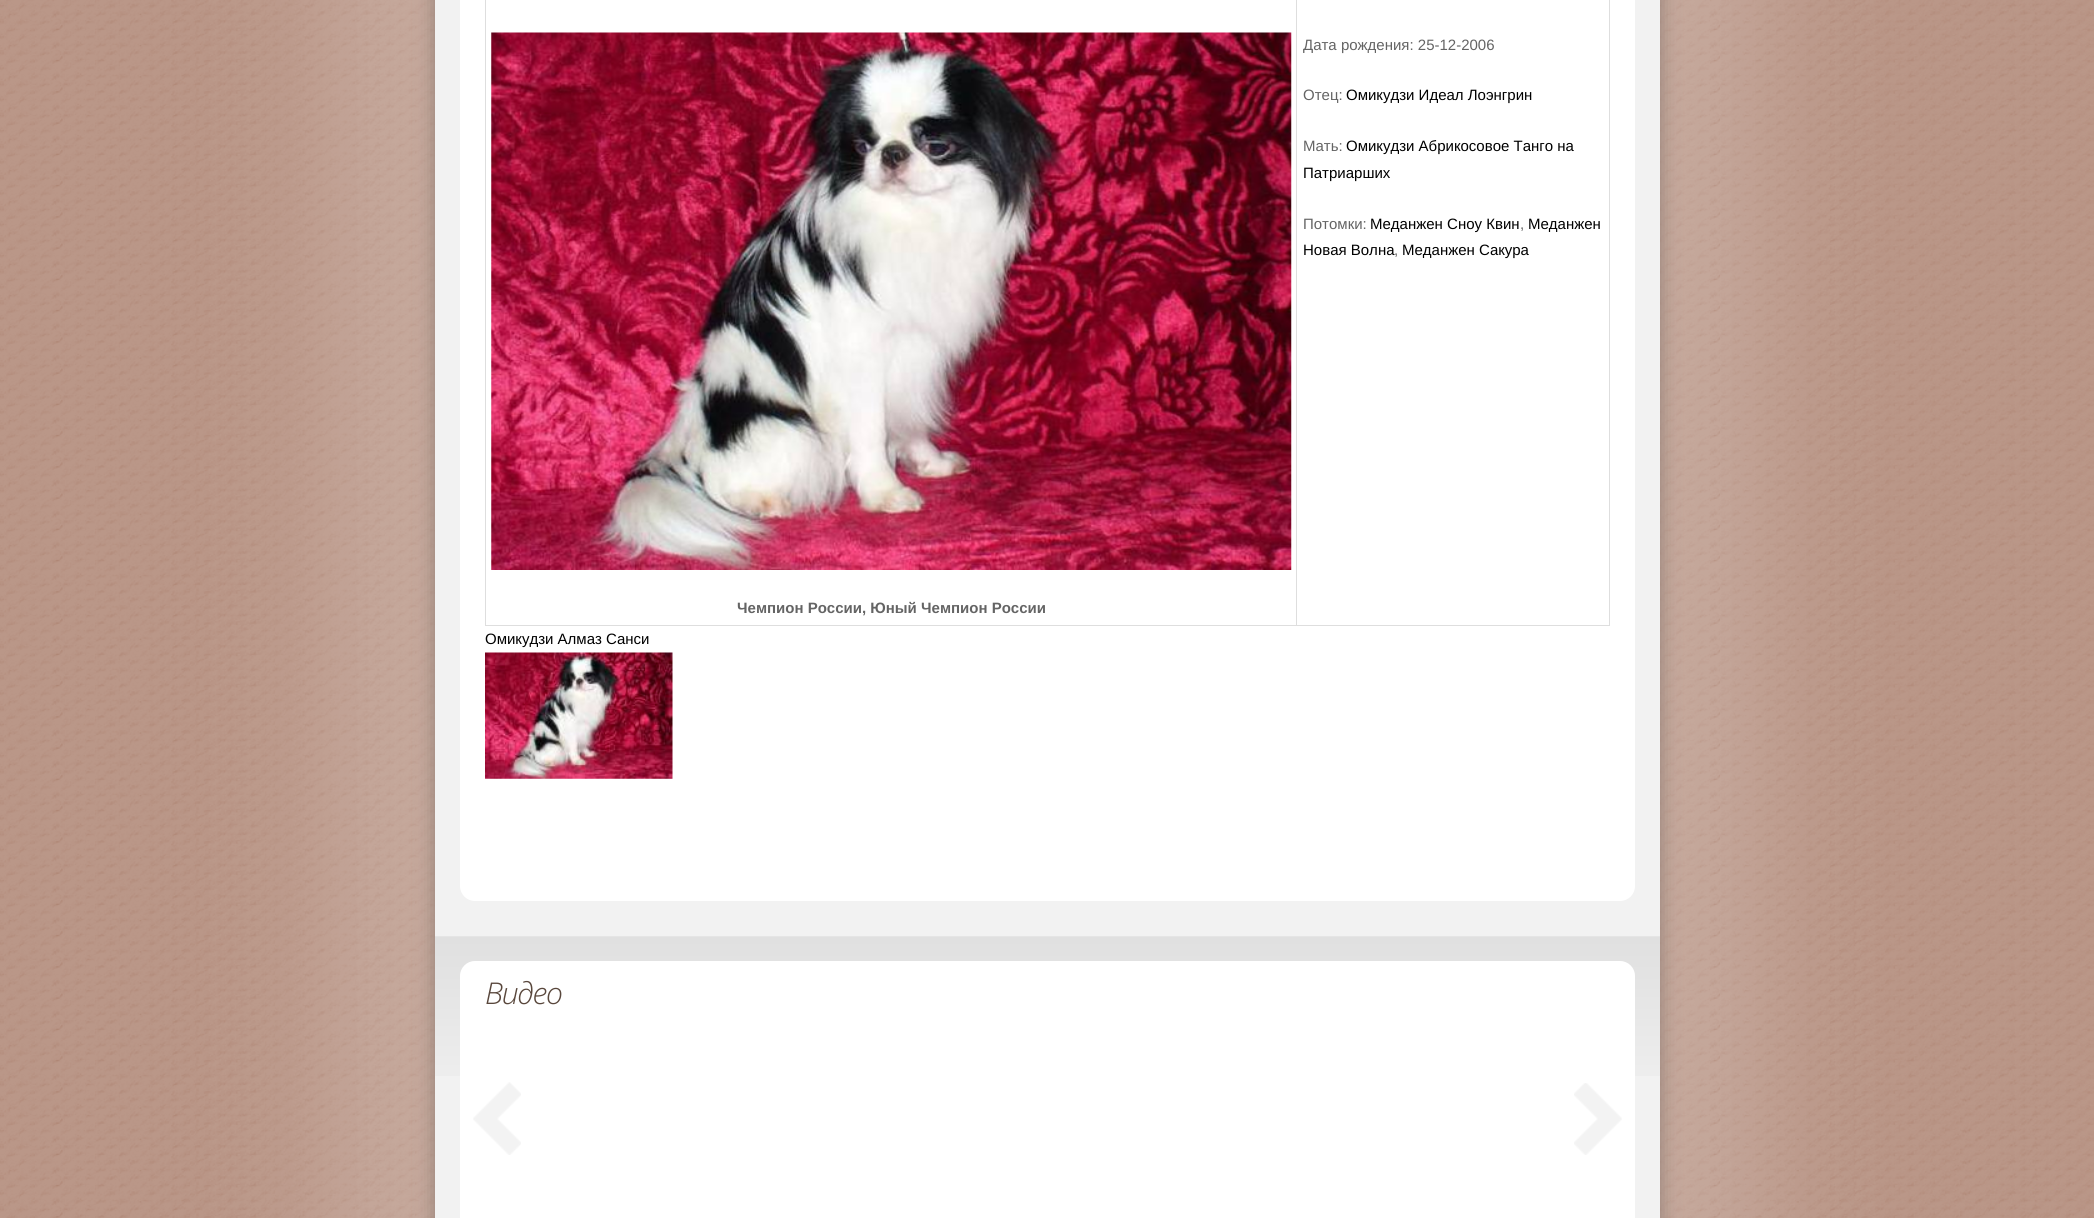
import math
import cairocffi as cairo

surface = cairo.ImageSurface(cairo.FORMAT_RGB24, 2094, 1218)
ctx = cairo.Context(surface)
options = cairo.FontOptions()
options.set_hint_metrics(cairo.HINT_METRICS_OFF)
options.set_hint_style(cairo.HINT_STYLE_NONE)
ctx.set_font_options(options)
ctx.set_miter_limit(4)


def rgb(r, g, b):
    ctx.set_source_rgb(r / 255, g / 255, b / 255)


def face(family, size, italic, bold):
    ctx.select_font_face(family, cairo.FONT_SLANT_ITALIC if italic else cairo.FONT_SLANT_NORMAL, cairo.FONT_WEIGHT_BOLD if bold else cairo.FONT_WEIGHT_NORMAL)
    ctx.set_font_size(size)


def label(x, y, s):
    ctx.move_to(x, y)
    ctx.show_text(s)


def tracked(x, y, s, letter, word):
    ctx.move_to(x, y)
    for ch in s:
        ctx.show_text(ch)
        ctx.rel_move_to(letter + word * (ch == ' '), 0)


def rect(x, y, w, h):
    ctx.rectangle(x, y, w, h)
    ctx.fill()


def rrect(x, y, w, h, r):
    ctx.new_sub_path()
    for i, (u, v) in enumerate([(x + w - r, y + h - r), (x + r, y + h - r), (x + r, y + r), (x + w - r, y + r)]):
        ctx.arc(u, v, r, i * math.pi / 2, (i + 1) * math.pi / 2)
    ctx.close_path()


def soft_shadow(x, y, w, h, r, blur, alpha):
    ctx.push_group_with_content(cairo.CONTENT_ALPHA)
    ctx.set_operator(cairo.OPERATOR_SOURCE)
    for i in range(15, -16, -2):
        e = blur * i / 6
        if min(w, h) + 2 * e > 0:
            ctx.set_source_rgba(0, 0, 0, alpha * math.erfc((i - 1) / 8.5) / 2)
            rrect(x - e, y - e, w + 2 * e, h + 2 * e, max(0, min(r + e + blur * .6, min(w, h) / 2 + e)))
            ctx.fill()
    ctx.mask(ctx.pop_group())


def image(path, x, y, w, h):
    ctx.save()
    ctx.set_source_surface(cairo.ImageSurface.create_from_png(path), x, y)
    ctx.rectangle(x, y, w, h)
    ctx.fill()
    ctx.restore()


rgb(255, 255, 255)
ctx.paint()
image('image0.png', 0, 0, 2094, 1218)
rgb(145, 126, 117)
soft_shadow(435, -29, 1225, 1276, 0, 9.5, 1)
rgb(242, 242, 242)
rect(435, 0, 1225, 1218)
rgb(255, 255, 255)
rrect(460, -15, 1175, 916, 15)
ctx.fill()
rgb(222, 222, 222)
rect(1609, 0, 1, 626)
rect(485, 625, 1125, 1)
rect(485, 0, 1, 626)
rect(1296, 0, 1, 626)
face('Liberation Sans', 15, 0, 0)
rgb(100, 100, 100)
label(1303, 50, 'Дата рождения: 25-12-2006')
label(1303, 100, 'Отец:')
rgb(0, 0, 0)
label(1346, 100, 'Омикудзи Идеал Лоэнгрин')
rgb(100, 100, 100)
label(1303, 151, 'Мать:')
rgb(0, 0, 0)
label(1346, 151, 'Омикудзи Абрикосовое Танго на')
label(1303, 178, 'Патриарших')
rgb(100, 100, 100)
label(1303, 229, 'Потомки:')
rgb(0, 0, 0)
label(1370, 229, 'Меданжен Сноу Квин')
rgb(100, 100, 100)
label(1520, 229, ',')
rgb(0, 0, 0)
label(1528, 229, 'Меданжен')
label(1303, 255, 'Новая Волна')
rgb(100, 100, 100)
label(1394, 255, ',')
rgb(0, 0, 0)
label(1402, 255, 'Меданжен Сакура')
image('image1.png', 491, 32, 801, 538)
face('Liberation Sans', 15, 0, 1)
rgb(100, 100, 100)
label(737, 613, 'Чемпион России, Юный Чемпион России')
face('Liberation Sans', 15, 0, 0)
rgb(0, 0, 0)
label(485, 644, 'Омикудзи Алмаз Санси')
image('image2.png', 485, 652, 188, 127)
image('image3.png', 435, 936, 1225, 140)
rgb(255, 255, 255)
rrect(460, 961, 1175, 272, 15)
ctx.fill()
face('Open Sans Light', 30, 1, 0)
rgb(89, 71, 60)
tracked(485, 1004, 'Видео', -1.25, 0)
image('image4.png', 473, 1082, 48, 73)
image('image5.png', 1574, 1083, 48, 72)
surface.write_to_png('render.png')
